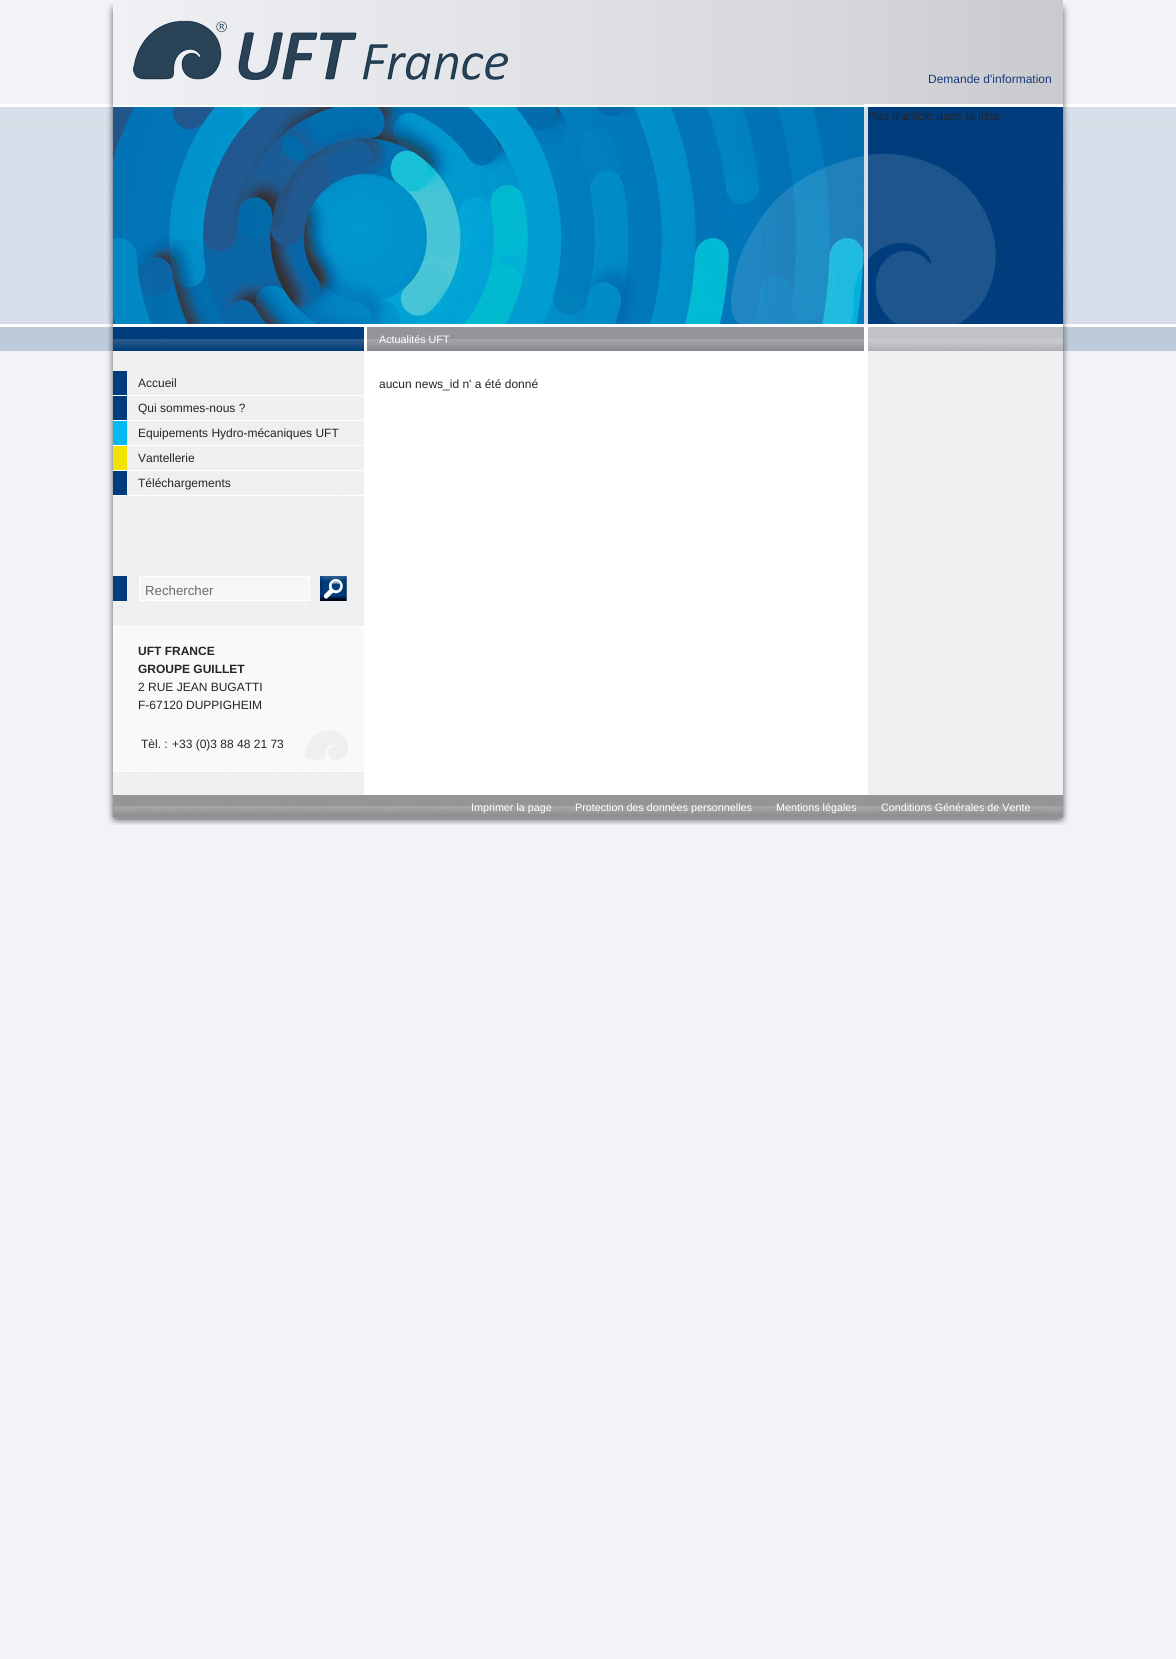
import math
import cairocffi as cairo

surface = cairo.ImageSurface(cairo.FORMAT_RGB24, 1176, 1659)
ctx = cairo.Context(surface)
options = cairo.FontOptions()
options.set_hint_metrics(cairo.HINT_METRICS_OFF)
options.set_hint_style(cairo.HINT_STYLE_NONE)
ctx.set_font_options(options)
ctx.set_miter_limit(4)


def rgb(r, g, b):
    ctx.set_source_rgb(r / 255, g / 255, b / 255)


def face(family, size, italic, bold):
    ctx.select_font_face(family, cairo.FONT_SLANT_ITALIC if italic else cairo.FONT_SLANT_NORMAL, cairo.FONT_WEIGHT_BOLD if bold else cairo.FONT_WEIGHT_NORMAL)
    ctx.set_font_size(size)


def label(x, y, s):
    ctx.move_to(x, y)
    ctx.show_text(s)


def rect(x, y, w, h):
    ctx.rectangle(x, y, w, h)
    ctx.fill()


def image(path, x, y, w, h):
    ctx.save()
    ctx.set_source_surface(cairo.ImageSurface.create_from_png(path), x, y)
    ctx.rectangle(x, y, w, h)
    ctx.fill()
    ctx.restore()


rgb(241, 243, 247)
ctx.paint()
image('image0.png', 0, 104, 1176, 247)
image('image1.png', 107, 2, 962, 102)
image('image4.png', 107, 104, 962, 691)
gradient = cairo.LinearGradient(113, 53, 864, 52)
gradient.add_color_stop_rgba(0, 0.941, 0.945, 0.961, 1)
gradient.add_color_stop_rgba(1, 0.835, 0.839, 0.855, 1)
ctx.set_source(gradient)
rect(113, 0, 751, 105)
image('image2.png', 133, 20, 375, 60)
image('image3.png', 864, 0, 199, 104)
face('Liberation Sans', 12, 0, 0)
rgb(22, 57, 123)
label(928, 83, 'Demande d\'information')
image('image5.png', 113, 107, 751, 217)
image('image6.png', 731, 156, 133, 168)
image('image7.png', 868, 107, 195, 217)
rgb(38, 35, 37)
label(868, 120, 'Pas d\'article dans la liste.')
rgb(255, 255, 255)
rect(113, 326, 950, 25)
image('image8.png', 113, 327, 251, 24)
image('image9.png', 367, 327, 497, 24)
face('Liberation Sans', 10.75, 0, 0)
label(379, 343, 'Actualités UFT')
image('image10.png', 868, 327, 195, 24)
image('image11.png', 113, 351, 950, 444)
rgb(1, 61, 124)
rect(113, 371, 14, 24)
rgb(255, 255, 255)
rect(113, 395, 251, 1)
face('Liberation Sans', 12, 0, 0)
rgb(38, 35, 37)
label(138, 387, 'Accueil')
rgb(1, 61, 124)
rect(113, 396, 14, 24)
rgb(255, 255, 255)
rect(113, 420, 251, 1)
rgb(38, 35, 37)
label(138, 412, 'Qui sommes-nous ?')
rgb(1, 186, 242)
rect(113, 421, 14, 24)
rgb(255, 255, 255)
rect(113, 445, 251, 1)
rgb(38, 35, 37)
label(138, 437, 'Equipements Hydro-mécaniques UFT')
rgb(241, 227, 4)
rect(113, 446, 14, 24)
rgb(255, 255, 255)
rect(113, 470, 251, 1)
rgb(38, 35, 37)
label(138, 462, 'Vantellerie')
rgb(1, 61, 124)
rect(113, 471, 14, 24)
rgb(255, 255, 255)
rect(113, 495, 251, 1)
rgb(38, 35, 37)
label(138, 487, 'Téléchargements')
rgb(1, 61, 124)
rect(113, 576, 14, 25)
rgb(246, 246, 246)
ctx.rectangle(139.5, 576.5, 170, 24)
ctx.fill_preserve()
rgb(255, 255, 255)
ctx.set_line_width(1)
ctx.stroke()
face('Liberation Sans', 13.25, 0, 0)
rgb(108, 108, 108)
label(145, 595, 'Rechercher')
image('image12.png', 320, 576, 27, 25)
rgb(249, 249, 250)
rect(113, 627, 251, 144)
rgb(255, 255, 255)
rect(113, 626, 251, 1)
rect(113, 771, 251, 1)
face('Liberation Sans', 12, 0, 1)
rgb(38, 35, 37)
label(138, 655, 'UFT FRANCE')
label(138, 673, 'GROUPE GUILLET')
face('Liberation Sans', 12, 0, 0)
label(138, 691, '2 RUE JEAN BUGATTI')
label(138, 709, 'F-67120 DUPPIGHEIM')
label(141, 748, 'Tèl. :')
label(172, 748, '+33 (0)3 88 48 21 73')
image('image13.png', 305, 730, 43, 30)
label(379, 388, 'aucun news_id n\' a été donné')
image('image14.png', 107, 795, 962, 30)
image('image15.png', 113, 795, 950, 23)
face('Liberation Sans', 10.75, 0, 0)
rgb(255, 255, 255)
label(471, 811, 'Imprimer la page')
label(575, 811, 'Protection des données personnelles')
label(776, 811, 'Mentions légales')
label(881, 811, 'Conditions Générales de Vente')
surface.write_to_png('render.png')
